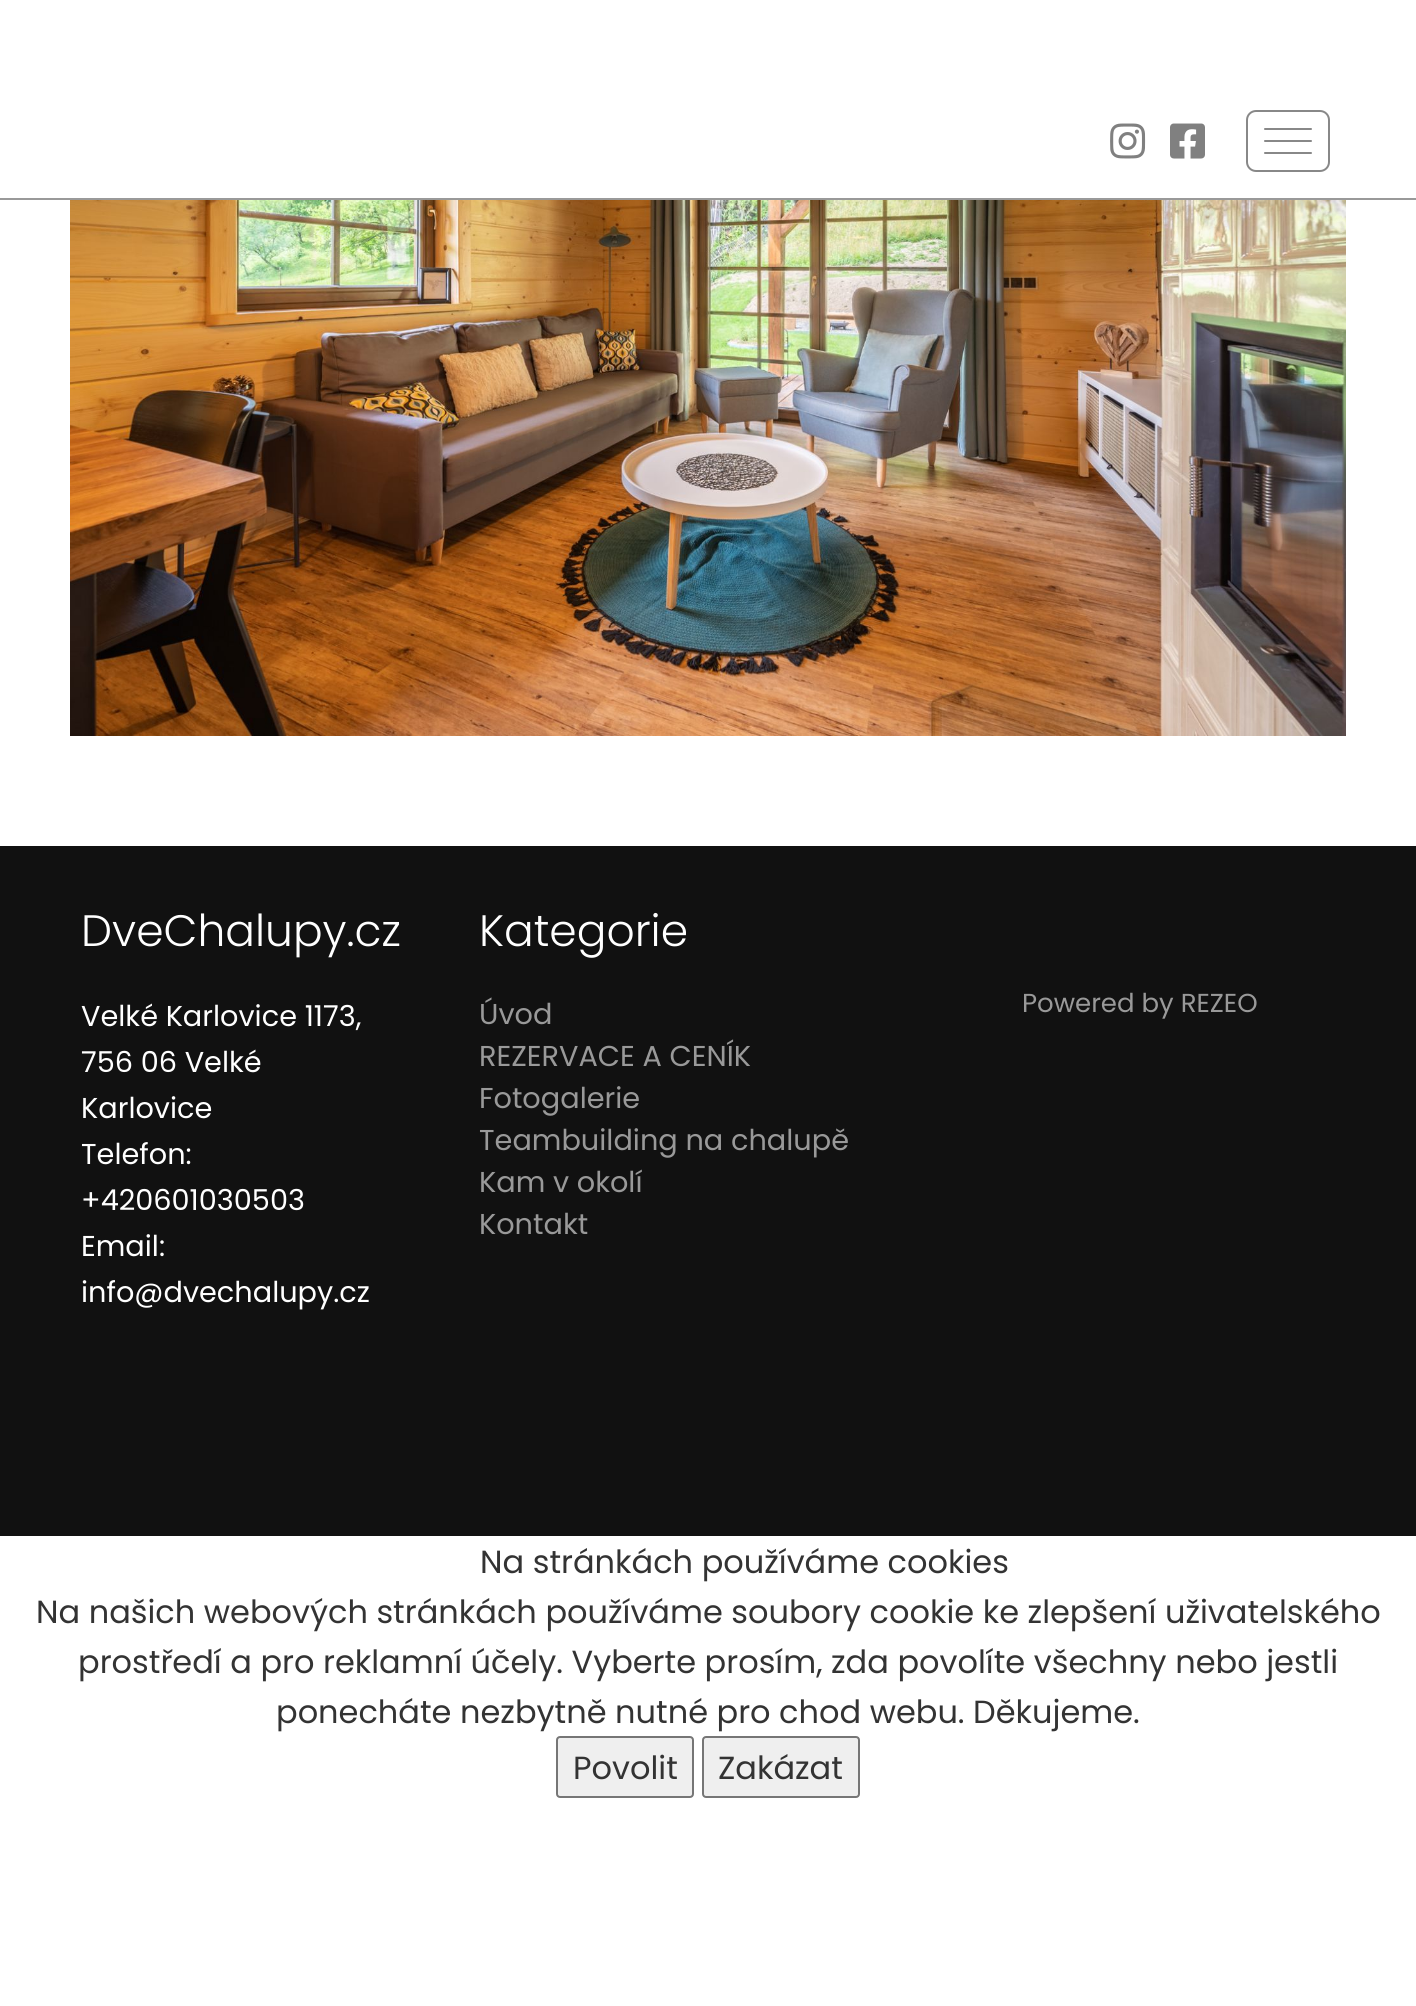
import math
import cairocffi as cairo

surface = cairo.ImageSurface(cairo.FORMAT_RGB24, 1416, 2006)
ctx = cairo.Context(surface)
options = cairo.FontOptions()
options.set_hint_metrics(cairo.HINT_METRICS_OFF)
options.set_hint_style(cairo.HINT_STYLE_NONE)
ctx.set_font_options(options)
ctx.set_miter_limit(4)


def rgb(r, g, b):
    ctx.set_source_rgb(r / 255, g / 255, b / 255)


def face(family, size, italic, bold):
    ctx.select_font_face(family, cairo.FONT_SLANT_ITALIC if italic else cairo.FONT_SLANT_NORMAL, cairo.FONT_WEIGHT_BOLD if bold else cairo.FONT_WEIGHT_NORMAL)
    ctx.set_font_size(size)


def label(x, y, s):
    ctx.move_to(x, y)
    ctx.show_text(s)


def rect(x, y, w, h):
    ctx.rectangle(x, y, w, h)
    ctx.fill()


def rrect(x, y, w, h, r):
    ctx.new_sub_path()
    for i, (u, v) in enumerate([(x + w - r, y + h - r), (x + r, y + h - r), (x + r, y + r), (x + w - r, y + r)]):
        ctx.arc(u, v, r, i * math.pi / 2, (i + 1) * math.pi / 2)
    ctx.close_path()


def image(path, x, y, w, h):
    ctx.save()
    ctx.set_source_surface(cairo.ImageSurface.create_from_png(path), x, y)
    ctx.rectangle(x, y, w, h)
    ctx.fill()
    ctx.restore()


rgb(255, 255, 255)
ctx.paint()
rgb(153, 153, 153)
rect(0, 198, 1416, 2)
image('image0.png', 1110, 123, 36, 36)
image('image1.png', 1170, 123, 35, 36)
rrect(1247, 111, 82, 60, 9)
rgb(136, 136, 136)
ctx.stroke()
rrect(1264, 128, 48, 2, 1)
ctx.fill()
rrect(1264, 140, 48, 2, 1)
ctx.fill()
rrect(1264, 152, 48, 2, 1)
ctx.fill()
image('image2.png', 70, 200, 1276, 536)
rgb(17, 17, 17)
rect(0, 846, 1416, 690)
face('Poppins Light', 44, 0, 0)
rgb(255, 255, 255)
label(81, 946, 'DveChalupy.cz')
face('Poppins', 28.75, 0, 0)
label(81, 1026, 'Velké Karlovice 1173,')
label(81, 1072, '756 06 Velké')
label(81, 1118, 'Karlovice')
label(81, 1164, 'Telefon:')
label(81, 1210, '+420601030503')
label(81, 1256, 'Email:')
label(81, 1302, 'info@dvechalupy.cz')
face('Poppins Light', 44, 0, 0)
label(479, 946, 'Kategorie')
face('Poppins', 28.75, 0, 0)
rgb(153, 153, 153)
label(479, 1024, 'Úvod')
label(479, 1066, 'REZERVACE A CENÍK')
label(479, 1108, 'Fotogalerie')
label(479, 1150, 'Teambuilding na chalupě')
label(479, 1192, 'Kam v okolí')
label(479, 1234, 'Kontakt')
face('Poppins', 26, 0, 0)
label(1022, 1012, 'Powered by REZEO')
face('Poppins', 32, 0, 0)
rgb(51, 51, 51)
label(480, 1573, 'Na stránkách používáme cookies')
label(36, 1623, 'Na našich webových stránkách používáme soubory cookie ke zlepšení uživatelského')
label(78, 1673, 'prostředí a pro reklamní účely. Vyberte prosím, zda povolíte všechny nebo jestli')
label(276, 1723, 'ponecháte nezbytně nutné pro chod webu. Děkujeme.')
rgb(239, 239, 239)
rrect(557, 1737, 136, 60, 3)
ctx.fill_preserve()
rgb(118, 118, 118)
ctx.stroke()
rgb(51, 51, 51)
label(573, 1779, 'Povolit')
rgb(239, 239, 239)
rrect(703, 1737, 156, 60, 3)
ctx.fill_preserve()
rgb(118, 118, 118)
ctx.stroke()
rgb(51, 51, 51)
label(718, 1779, 'Zakázat')
surface.write_to_png('render.png')
